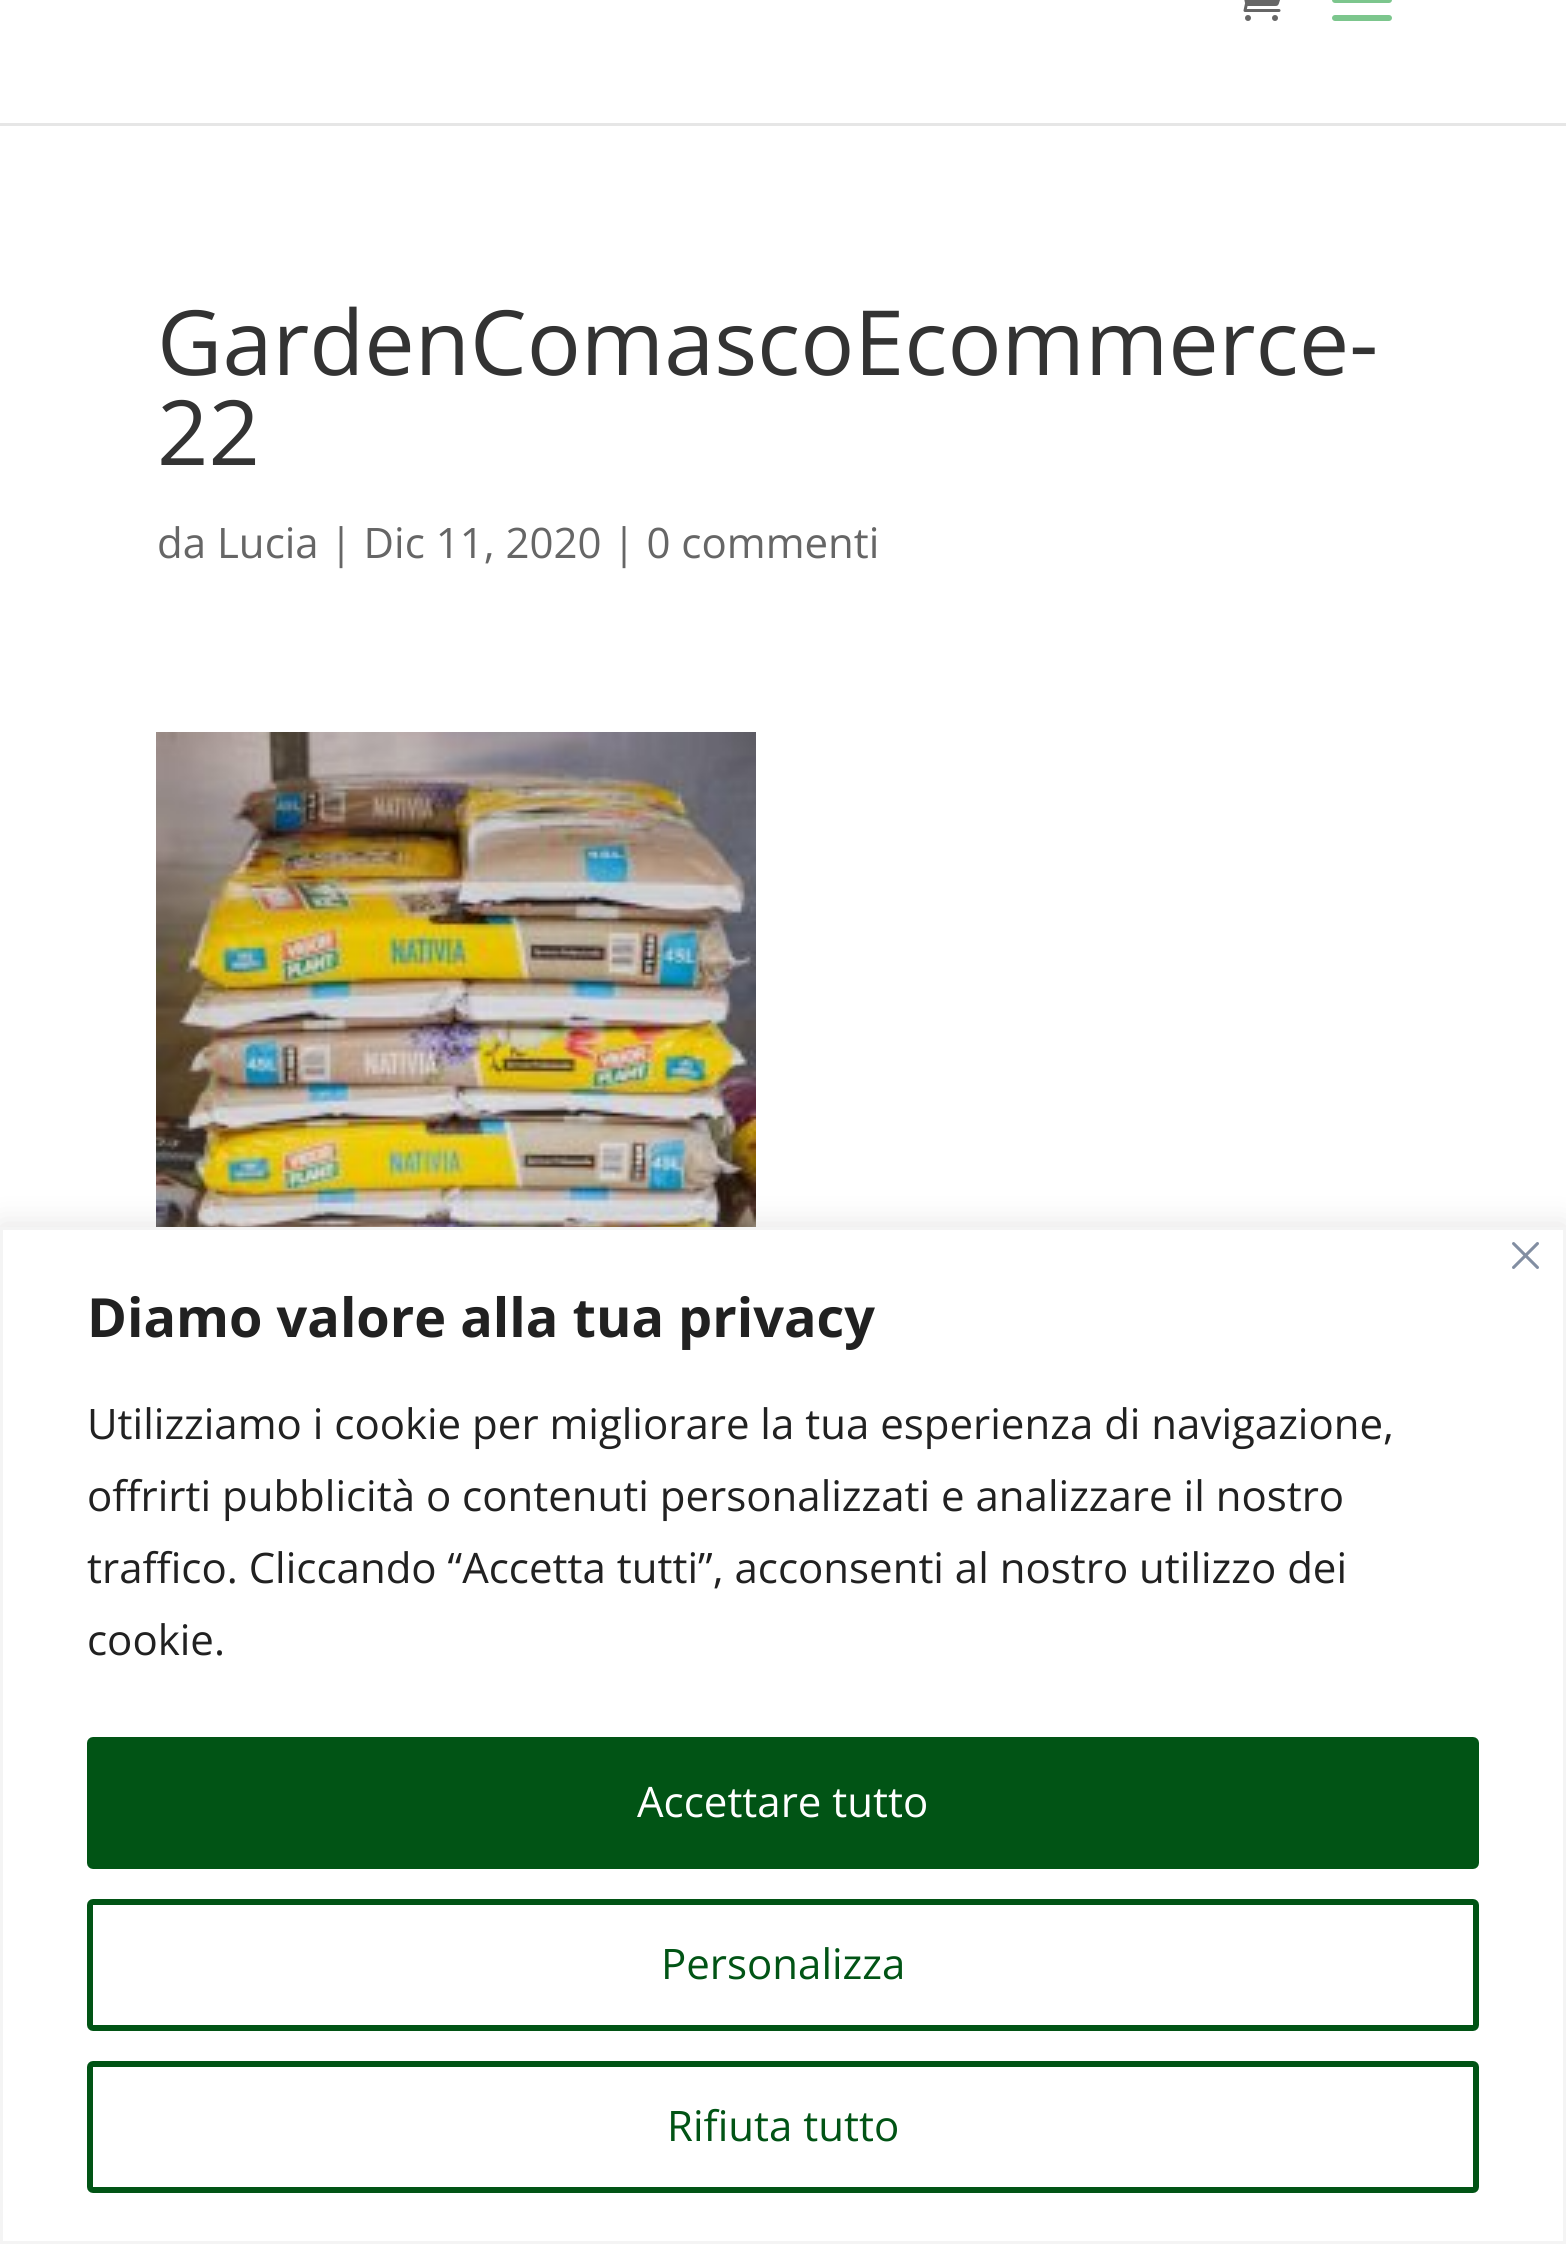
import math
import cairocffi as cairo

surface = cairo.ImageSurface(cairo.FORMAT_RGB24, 1566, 2244)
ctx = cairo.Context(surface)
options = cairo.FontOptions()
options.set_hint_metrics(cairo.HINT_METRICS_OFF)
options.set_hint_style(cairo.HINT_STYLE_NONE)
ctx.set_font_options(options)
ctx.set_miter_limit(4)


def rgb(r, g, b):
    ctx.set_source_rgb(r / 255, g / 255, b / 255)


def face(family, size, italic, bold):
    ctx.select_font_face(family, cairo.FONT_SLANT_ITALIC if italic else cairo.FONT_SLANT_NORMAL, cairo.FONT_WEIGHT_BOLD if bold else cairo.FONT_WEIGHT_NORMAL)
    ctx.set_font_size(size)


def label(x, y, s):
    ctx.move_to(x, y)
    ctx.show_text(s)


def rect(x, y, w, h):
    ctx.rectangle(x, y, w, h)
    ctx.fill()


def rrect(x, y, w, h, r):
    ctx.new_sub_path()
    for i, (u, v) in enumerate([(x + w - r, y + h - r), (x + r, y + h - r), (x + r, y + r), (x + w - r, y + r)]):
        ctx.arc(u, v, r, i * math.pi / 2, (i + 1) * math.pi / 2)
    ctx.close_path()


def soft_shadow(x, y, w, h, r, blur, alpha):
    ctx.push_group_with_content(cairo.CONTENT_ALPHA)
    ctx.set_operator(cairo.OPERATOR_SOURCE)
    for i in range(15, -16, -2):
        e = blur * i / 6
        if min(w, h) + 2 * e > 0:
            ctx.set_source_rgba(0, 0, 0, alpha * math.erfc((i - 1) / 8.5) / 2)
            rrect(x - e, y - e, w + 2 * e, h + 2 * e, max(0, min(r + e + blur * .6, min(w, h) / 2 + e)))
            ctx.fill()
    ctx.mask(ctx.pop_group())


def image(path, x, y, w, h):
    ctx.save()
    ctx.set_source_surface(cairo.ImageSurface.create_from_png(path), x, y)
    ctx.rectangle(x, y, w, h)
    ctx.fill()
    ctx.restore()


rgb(255, 255, 255)
ctx.paint()
rgb(230, 230, 230)
rect(0, 123, 1566, 3)
image('image0.png', 1243, 0, 38, 21)
image('image1.png', 1332, 0, 60, 21)
face('Open Sans', 90, 0, 0)
rgb(51, 51, 51)
label(157, 375, 'GardenComascoEcommerce-')
label(157, 465, '22')
face('Open Sans', 42, 0, 0)
rgb(102, 102, 102)
label(157, 558, 'da Lucia | Dic 11, 2020 | 0 commenti')
image('image2.png', 156, 732, 600, 495)
rgb(172, 171, 171)
soft_shadow(0, 1224, 1566, 1017, 0, 15, 0.3)
rgb(255, 255, 255)
ctx.rectangle(1.5, 1228.5, 1563, 1014)
ctx.fill_preserve()
rgb(244, 244, 244)
ctx.set_line_width(3)
ctx.stroke()
image('image3.png', 1512, 1242, 27, 27)
face('Open Sans', 54, 0, 1)
rgb(33, 33, 33)
label(87, 1337, 'Diamo valore alla tua privacy')
face('Open Sans', 42, 0, 0)
label(87, 1439, 'Utilizziamo i cookie per migliorare la tua esperienza di navigazione,')
label(87, 1511, 'offrirti pubblicità o contenuti personalizzati e analizzare il nostro')
label(87, 1583, 'traffico. Cliccando “Accetta tutti”, acconsenti al nostro utilizzo dei')
label(87, 1655, 'cookie.')
rgb(1, 84, 21)
rrect(90, 1740, 1386, 126, 3)
ctx.fill_preserve()
ctx.set_line_width(6)
ctx.stroke()
rgb(255, 255, 255)
label(637, 1817, 'Accettare tutto')
rrect(90, 1902, 1386, 126, 3)
rgb(1, 84, 21)
ctx.stroke()
label(661, 1979, 'Personalizza')
rrect(90, 2064, 1386, 126, 3)
ctx.stroke()
label(667, 2141, 'Rifiuta tutto')
surface.write_to_png('render.png')
